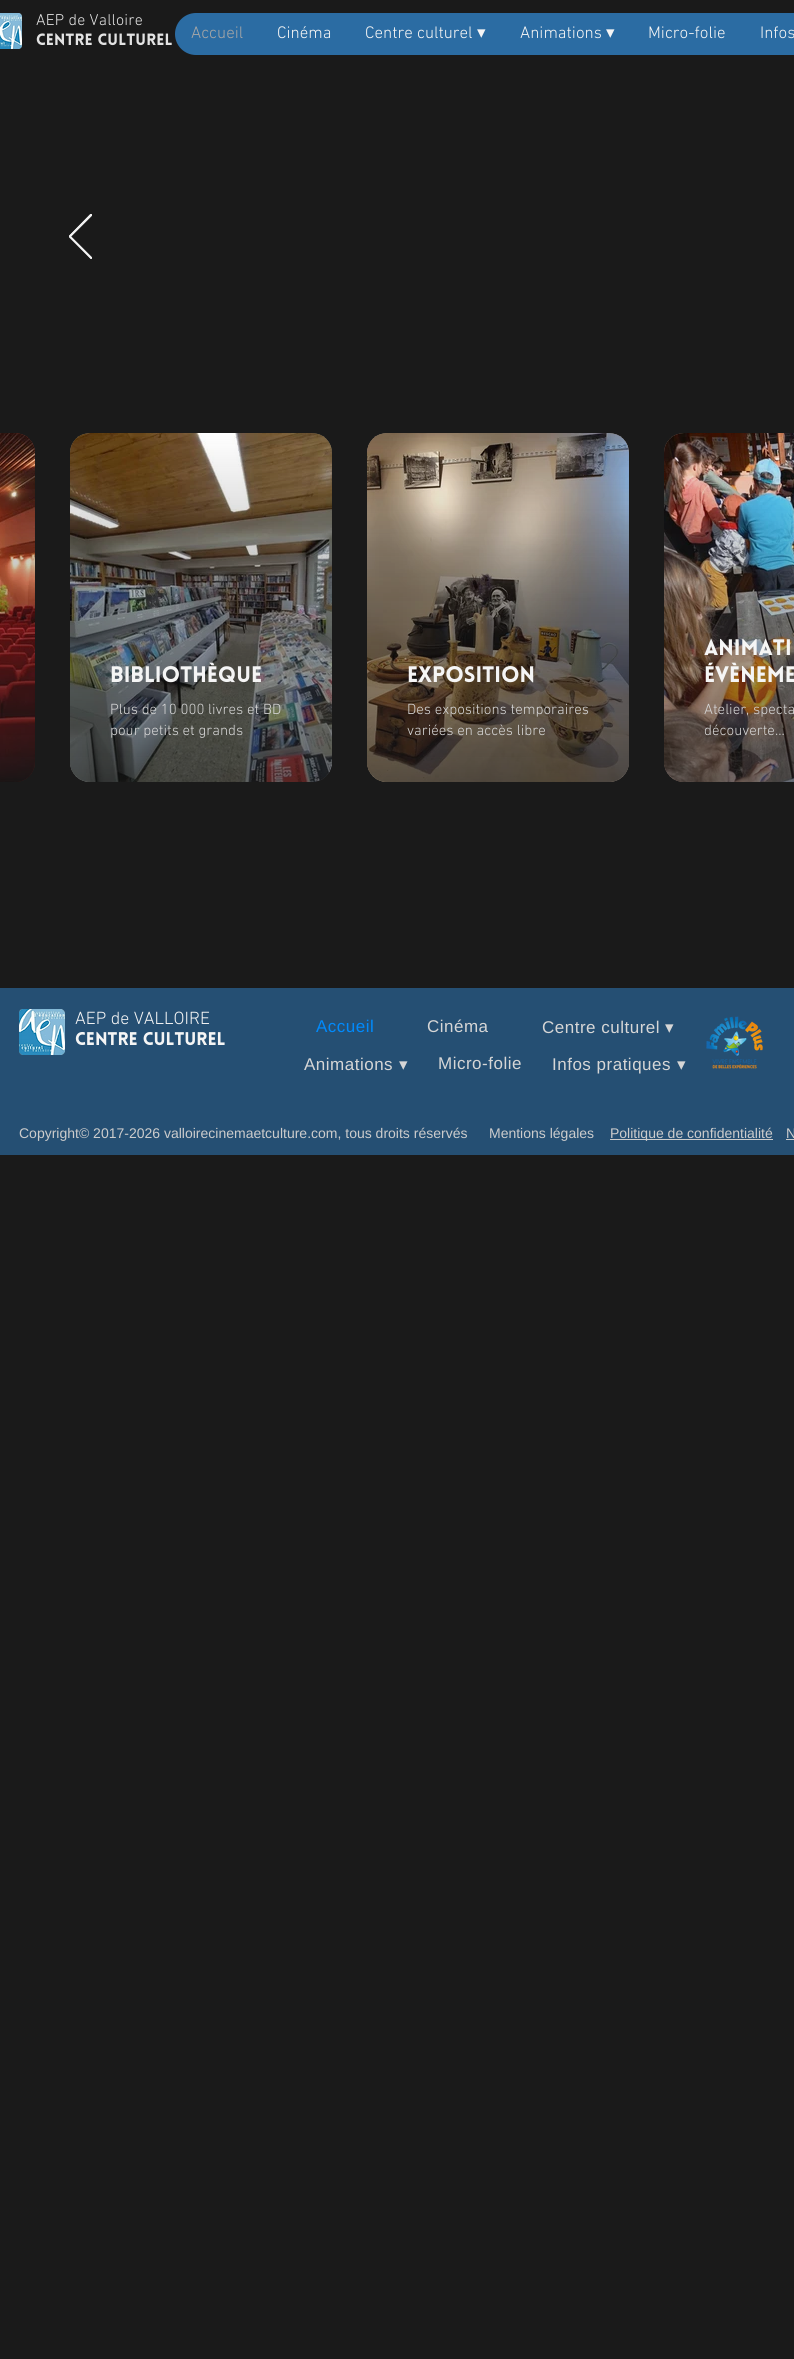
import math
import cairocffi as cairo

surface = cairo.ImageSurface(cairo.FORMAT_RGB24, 794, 2359)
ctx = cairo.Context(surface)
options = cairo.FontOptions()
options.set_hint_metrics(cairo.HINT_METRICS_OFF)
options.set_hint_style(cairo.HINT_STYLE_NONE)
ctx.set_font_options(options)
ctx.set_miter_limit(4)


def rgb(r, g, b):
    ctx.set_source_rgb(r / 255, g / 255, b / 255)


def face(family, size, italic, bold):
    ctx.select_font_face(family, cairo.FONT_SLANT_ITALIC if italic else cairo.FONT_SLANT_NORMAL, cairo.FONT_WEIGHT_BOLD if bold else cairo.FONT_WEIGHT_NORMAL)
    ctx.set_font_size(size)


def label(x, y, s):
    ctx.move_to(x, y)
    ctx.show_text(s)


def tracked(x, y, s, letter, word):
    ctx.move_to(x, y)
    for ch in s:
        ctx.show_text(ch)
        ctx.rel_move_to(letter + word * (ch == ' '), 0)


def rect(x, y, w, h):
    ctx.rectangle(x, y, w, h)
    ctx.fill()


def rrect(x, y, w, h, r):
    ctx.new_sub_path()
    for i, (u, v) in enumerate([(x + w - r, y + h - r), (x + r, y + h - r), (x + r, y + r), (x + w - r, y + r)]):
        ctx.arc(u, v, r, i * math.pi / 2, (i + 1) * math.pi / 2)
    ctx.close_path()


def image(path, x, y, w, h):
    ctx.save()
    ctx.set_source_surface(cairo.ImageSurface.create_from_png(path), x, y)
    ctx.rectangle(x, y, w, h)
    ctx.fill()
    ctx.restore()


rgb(26, 26, 26)
ctx.paint()
image('image0.png', 0, 13, 22, 36)
face('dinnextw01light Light', 16, 0, 0)
rgb(227, 227, 227)
tracked(36, 25, 'AEP de Valloire', 0.2, 0)
face('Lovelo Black', 16, 0, 0)
tracked(36, 45, 'Centre Culturel', 0.2, 0)
rgb(43, 108, 163)
rrect(175, 13, 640, 42, 21)
ctx.fill()
face('dinnextw01light Light', 17, 0, 0)
rgb(166, 166, 166)
label(191, 38, 'Accueil')
rgb(245, 245, 245)
label(277, 38, 'Cinéma')
label(365, 38, 'Centre culturel')
face('DejaVu Sans', 17, 0, 0)
label(477, 38, '▾')
face('dinnextw01light Light', 17, 0, 0)
label(520, 38, 'Animations')
face('DejaVu Sans', 17, 0, 0)
label(606, 38, '▾')
face('dinnextw01light Light', 17, 0, 0)
label(648, 38, 'Micro-folie')
label(760, 38, 'Infos')
ctx.new_path()
ctx.move_to(91, 259)
ctx.line_to(69, 236)
ctx.line_to(91, 214)
ctx.line_to(92, 215)
ctx.line_to(70, 236)
ctx.line_to(92, 258)
ctx.close_path()
ctx.fill()
ctx.save()
ctx.rectangle(69, 214, 23, 45)
ctx.clip()
ctx.new_path()
ctx.move_to(91, 258.5)
ctx.line_to(69, 236.5)
ctx.line_to(91, 214)
ctx.line_to(92, 215)
ctx.line_to(70.5, 236.5)
ctx.line_to(92, 258)
ctx.close_path()
ctx.set_line_width(1.1)
ctx.stroke()
ctx.restore()
image('image2.png', 15, 433, 20, 349)
image('image1.png', 0, 433, 35, 349)
gradient = cairo.LinearGradient(-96, 433, -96, 782)
gradient.add_color_stop_rgba(0, 0.102, 0.102, 0.102, 0)
gradient.add_color_stop_rgba(1, 0.102, 0.102, 0.102, 0.6)
ctx.set_source(gradient)
ctx.new_path()
ctx.move_to(0, 433)
ctx.line_to(15, 433)
ctx.curve_to(26, 433, 35, 442, 35, 453)
ctx.line_to(35, 762)
ctx.curve_to(35, 773, 26, 782, 15, 782)
ctx.line_to(0, 782)
ctx.close_path()
ctx.fill()
image('image3.png', 70, 433, 262, 349)
image('image4.png', 70, 433, 262, 349)
gradient = cairo.LinearGradient(201, 433, 201, 782)
gradient.add_color_stop_rgba(0, 0.102, 0.102, 0.102, 0)
gradient.add_color_stop_rgba(1, 0.102, 0.102, 0.102, 0.6)
ctx.set_source(gradient)
rrect(70, 433, 262, 349, 20)
ctx.fill()
face('Lovelo Black', 22, 0, 0)
rgb(245, 245, 245)
label(110, 682, 'Bibliothèque')
face('dinnextw01light Light', 15, 0, 0)
rgb(214, 214, 214)
label(110, 714, 'Plus de 10 000 livres et BD')
label(110, 735, 'pour petits et grands')
image('image5.png', 367, 433, 262, 349)
image('image6.png', 367, 433, 262, 349)
gradient = cairo.LinearGradient(498, 433, 498, 782)
gradient.add_color_stop_rgba(0, 0.102, 0.102, 0.102, 0)
gradient.add_color_stop_rgba(1, 0.102, 0.102, 0.102, 0.6)
ctx.set_source(gradient)
rrect(367, 433, 262, 349, 20)
ctx.fill()
face('Lovelo Black', 22, 0, 0)
rgb(245, 245, 245)
label(407, 682, 'Exposition')
face('dinnextw01light Light', 15, 0, 0)
rgb(214, 214, 214)
label(407, 714, 'Des expositions temporaires')
label(407, 735, 'variées en accès libre')
image('image7.png', 664, 433, 20, 349)
image('image8.png', 664, 433, 130, 349)
gradient = cairo.LinearGradient(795, 433, 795, 782)
gradient.add_color_stop_rgba(0, 0.102, 0.102, 0.102, 0)
gradient.add_color_stop_rgba(1, 0.102, 0.102, 0.102, 0.6)
ctx.set_source(gradient)
rrect(664, 433, 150, 349, 20)
ctx.fill()
face('Lovelo Black', 22, 0, 0)
rgb(245, 245, 245)
label(704, 655, 'Animati')
label(704, 682, 'évèneme')
face('dinnextw01light Light', 15, 0, 0)
rgb(214, 214, 214)
label(704, 714, 'Atelier, specta')
label(704, 735, 'découverte...')
rgb(37, 79, 115)
rect(0, 988, 794, 167)
image('image9.png', 19, 1009, 46, 46)
face('dinnextw01light Light', 18, 0, 0)
rgb(245, 245, 245)
label(75, 1024, 'AEP de VALLOIRE')
face('Lovelo Black', 18, 0, 0)
label(75, 1045, 'CENTRE CULTUREL')
face('Liberation Sans', 17, 0, 0)
rgb(0, 138, 252)
tracked(316, 1032, 'Accueil', 0.5, 0)
rgb(214, 214, 214)
tracked(427, 1032, 'Cinéma', 0.5, 0)
tracked(542, 1033, 'Centre culturel', 0.5, 0)
face('DejaVu Sans', 17, 0, 0)
tracked(665, 1033, '▾', 0.5, 0)
face('Liberation Sans', 17, 0, 0)
tracked(304, 1070, 'Animations', 0.5, 0)
face('DejaVu Sans', 17, 0, 0)
tracked(399, 1070, '▾', 0.5, 0)
face('Liberation Sans', 17, 0, 0)
tracked(438, 1069, 'Micro-folie', 0.5, 0)
tracked(552, 1070, 'Infos pratiques', 0.5, 0)
face('DejaVu Sans', 17, 0, 0)
tracked(677, 1070, '▾', 0.5, 0)
image('image10.png', 706, 1016, 57, 53)
face('Liberation Sans', 14, 0, 0)
rgb(204, 204, 204)
label(19, 1138, 'Copyright© 2017-2026 valloirecinemaetculture.com, tous droits réservés')
label(489, 1138, 'Mentions légales')
rect(610, 1139, 163, 1)
label(610, 1138, 'Politique de confidentialité')
label(786, 1138, 'N')
rect(786, 1139, 8, 1)
surface.write_to_png('render.png')
